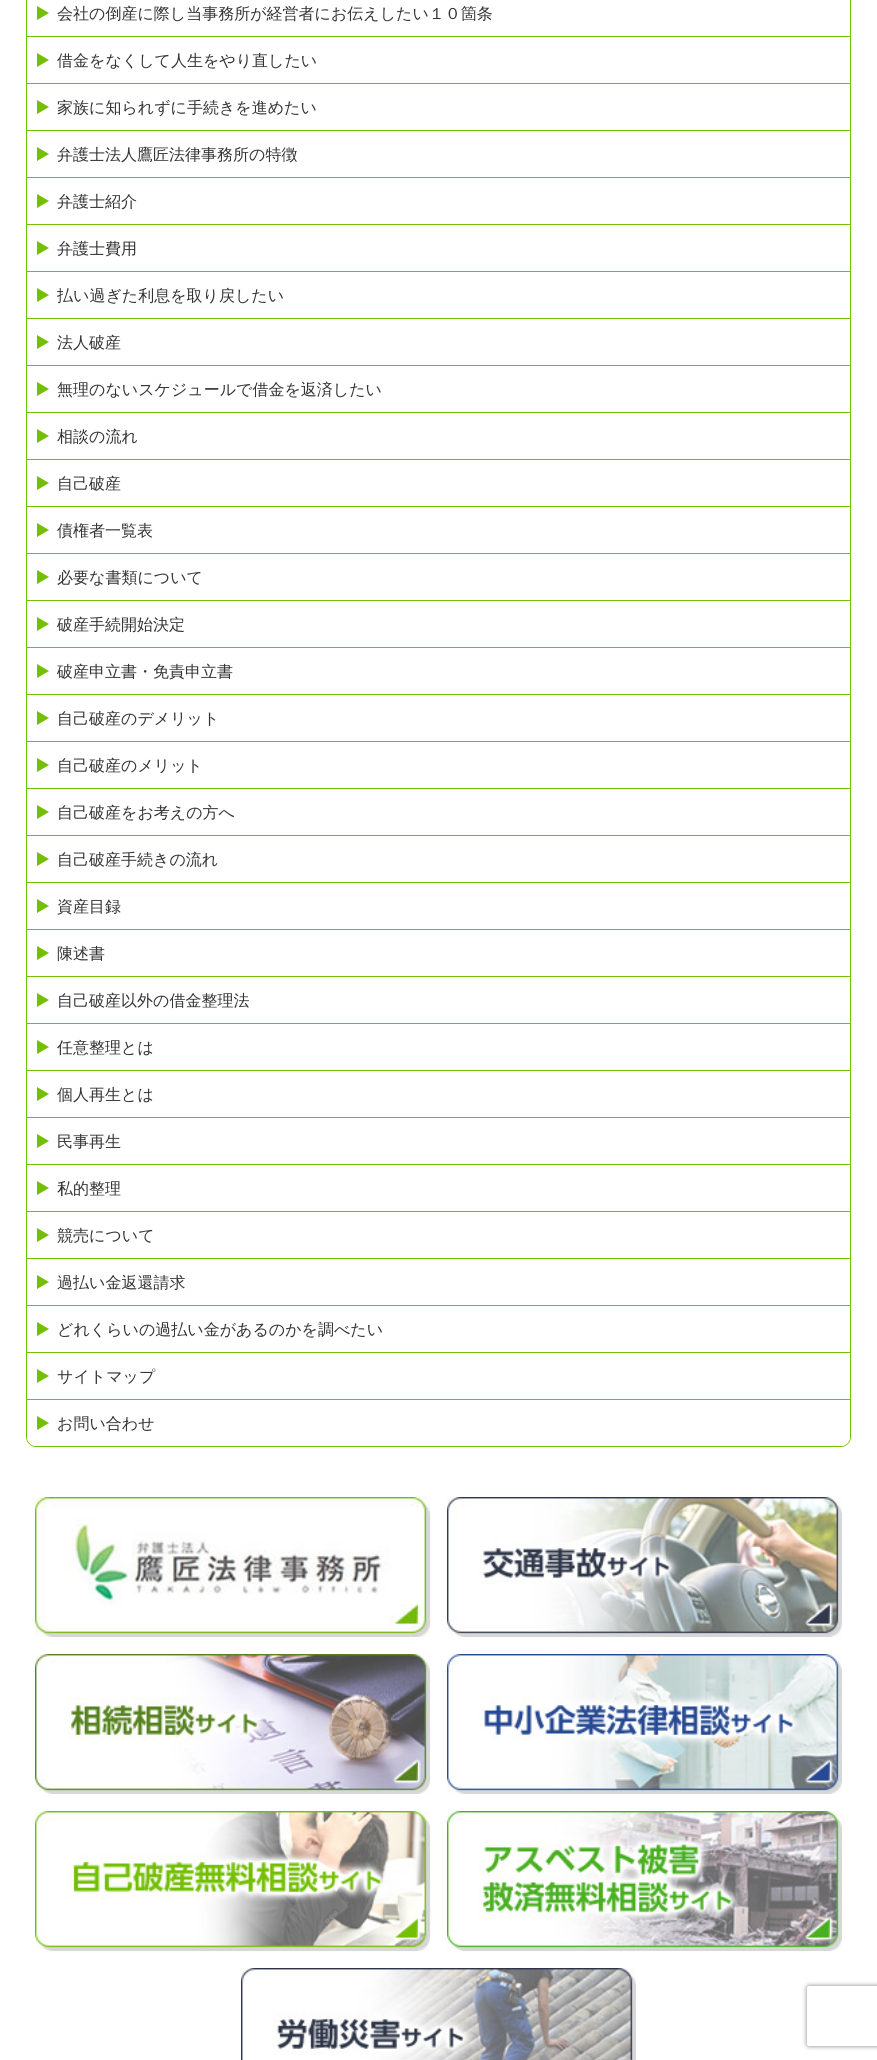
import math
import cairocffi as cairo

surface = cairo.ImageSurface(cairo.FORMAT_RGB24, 877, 2060)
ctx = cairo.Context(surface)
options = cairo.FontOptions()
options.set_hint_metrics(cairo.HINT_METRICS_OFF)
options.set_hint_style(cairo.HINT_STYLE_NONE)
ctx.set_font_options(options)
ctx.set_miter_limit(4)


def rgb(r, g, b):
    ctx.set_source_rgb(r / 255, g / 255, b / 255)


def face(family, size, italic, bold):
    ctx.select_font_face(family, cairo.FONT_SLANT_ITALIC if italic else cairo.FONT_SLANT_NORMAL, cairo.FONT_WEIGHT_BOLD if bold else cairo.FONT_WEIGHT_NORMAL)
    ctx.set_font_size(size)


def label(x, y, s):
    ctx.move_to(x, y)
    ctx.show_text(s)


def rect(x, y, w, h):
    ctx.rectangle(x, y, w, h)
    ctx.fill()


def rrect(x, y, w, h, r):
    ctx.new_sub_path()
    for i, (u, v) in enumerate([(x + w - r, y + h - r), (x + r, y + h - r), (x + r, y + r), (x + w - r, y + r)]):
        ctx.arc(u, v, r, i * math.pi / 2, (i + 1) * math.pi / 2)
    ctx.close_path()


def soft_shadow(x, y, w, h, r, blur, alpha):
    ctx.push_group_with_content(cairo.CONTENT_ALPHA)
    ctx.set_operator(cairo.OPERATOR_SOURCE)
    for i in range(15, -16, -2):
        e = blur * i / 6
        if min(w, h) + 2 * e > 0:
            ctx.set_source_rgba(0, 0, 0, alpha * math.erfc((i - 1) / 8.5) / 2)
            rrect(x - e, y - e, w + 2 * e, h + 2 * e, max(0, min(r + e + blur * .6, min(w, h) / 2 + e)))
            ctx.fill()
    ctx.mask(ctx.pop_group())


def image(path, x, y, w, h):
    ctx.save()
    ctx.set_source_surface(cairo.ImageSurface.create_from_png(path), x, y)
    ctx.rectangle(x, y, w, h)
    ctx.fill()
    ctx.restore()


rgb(255, 255, 255)
ctx.paint()
ctx.new_path()
ctx.move_to(26.5, -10.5)
ctx.line_to(850.5, -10.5)
ctx.line_to(850.5, 1437)
ctx.curve_to(850.5, 1442, 846, 1446.5, 841, 1446.5)
ctx.line_to(36, 1446.5)
ctx.curve_to(31, 1446.5, 26.5, 1442, 26.5, 1437)
ctx.close_path()
rgb(116, 191, 4)
ctx.set_line_width(1)
ctx.stroke()
rect(27, 36, 823, 1)
image('image0.png', 37, 6, 12, 14)
face('WenQuanYi Zen Hei Medium', 16, 0, 0)
rgb(51, 51, 51)
label(57, 19, '会社の倒産に際し当事務所が経営者にお伝えしたい１０箇条')
rgb(116, 191, 4)
rect(27, 83, 823, 1)
image('image0.png', 37, 53, 12, 14)
rgb(51, 51, 51)
label(57, 66, '借金をなくして人生をやり直したい')
rgb(116, 191, 4)
rect(27, 130, 823, 1)
image('image0.png', 37, 100, 12, 14)
rgb(51, 51, 51)
label(57, 113, '家族に知られずに手続きを進めたい')
rgb(116, 191, 4)
rect(27, 177, 823, 1)
image('image0.png', 37, 147, 12, 14)
rgb(51, 51, 51)
label(57, 160, '弁護士法人鷹匠法律事務所の特徴')
rgb(116, 191, 4)
rect(27, 224, 823, 1)
image('image0.png', 37, 194, 12, 14)
rgb(51, 51, 51)
label(57, 207, '弁護士紹介')
rgb(116, 191, 4)
rect(27, 271, 823, 1)
image('image0.png', 37, 241, 12, 14)
rgb(51, 51, 51)
label(57, 254, '弁護士費用')
rgb(116, 191, 4)
rect(27, 318, 823, 1)
image('image0.png', 37, 288, 12, 14)
rgb(51, 51, 51)
label(57, 301, '払い過ぎた利息を取り戻したい')
rgb(116, 191, 4)
rect(27, 365, 823, 1)
image('image0.png', 37, 335, 12, 14)
rgb(51, 51, 51)
label(57, 348, '法人破産')
rgb(116, 191, 4)
rect(27, 412, 823, 1)
image('image0.png', 37, 382, 12, 14)
rgb(51, 51, 51)
label(57, 395, '無理のないスケジュールで借金を返済したい')
rgb(116, 191, 4)
rect(27, 459, 823, 1)
image('image0.png', 37, 429, 12, 14)
rgb(51, 51, 51)
label(57, 442, '相談の流れ')
rgb(116, 191, 4)
rect(27, 506, 823, 1)
image('image0.png', 37, 476, 12, 14)
rgb(51, 51, 51)
label(57, 489, '自己破産')
rgb(116, 191, 4)
rect(27, 553, 823, 1)
image('image0.png', 37, 523, 12, 14)
rgb(51, 51, 51)
label(57, 536, '債権者一覧表')
rgb(116, 191, 4)
rect(27, 600, 823, 1)
image('image0.png', 37, 570, 12, 14)
rgb(51, 51, 51)
label(57, 583, '必要な書類について')
rgb(116, 191, 4)
rect(27, 647, 823, 1)
image('image0.png', 37, 617, 12, 14)
rgb(51, 51, 51)
label(57, 630, '破産手続開始決定')
rgb(116, 191, 4)
rect(27, 694, 823, 1)
image('image0.png', 37, 664, 12, 14)
rgb(51, 51, 51)
label(57, 677, '破産申立書・免責申立書')
rgb(116, 191, 4)
rect(27, 741, 823, 1)
image('image0.png', 37, 711, 12, 14)
rgb(51, 51, 51)
label(57, 724, '自己破産のデメリット')
rgb(116, 191, 4)
rect(27, 788, 823, 1)
image('image0.png', 37, 758, 12, 14)
rgb(51, 51, 51)
label(57, 771, '自己破産のメリット')
rgb(116, 191, 4)
rect(27, 835, 823, 1)
image('image0.png', 37, 805, 12, 14)
rgb(51, 51, 51)
label(57, 818, '自己破産をお考えの方へ')
rgb(116, 191, 4)
rect(27, 882, 823, 1)
image('image0.png', 37, 852, 12, 14)
rgb(51, 51, 51)
label(57, 865, '自己破産手続きの流れ')
rgb(116, 191, 4)
rect(27, 929, 823, 1)
image('image0.png', 37, 899, 12, 14)
rgb(51, 51, 51)
label(57, 912, '資産目録')
rgb(116, 191, 4)
rect(27, 976, 823, 1)
image('image0.png', 37, 946, 12, 14)
rgb(51, 51, 51)
label(57, 959, '陳述書')
rgb(116, 191, 4)
rect(27, 1023, 823, 1)
image('image0.png', 37, 993, 12, 14)
rgb(51, 51, 51)
label(57, 1006, '自己破産以外の借金整理法')
rgb(116, 191, 4)
rect(27, 1070, 823, 1)
image('image0.png', 37, 1040, 12, 14)
rgb(51, 51, 51)
label(57, 1053, '任意整理とは')
rgb(116, 191, 4)
rect(27, 1117, 823, 1)
image('image0.png', 37, 1087, 12, 14)
rgb(51, 51, 51)
label(57, 1100, '個人再生とは')
rgb(116, 191, 4)
rect(27, 1164, 823, 1)
image('image0.png', 37, 1134, 12, 14)
rgb(51, 51, 51)
label(57, 1147, '民事再生')
rgb(116, 191, 4)
rect(27, 1211, 823, 1)
image('image0.png', 37, 1181, 12, 14)
rgb(51, 51, 51)
label(57, 1194, '私的整理')
rgb(116, 191, 4)
rect(27, 1258, 823, 1)
image('image0.png', 37, 1228, 12, 14)
rgb(51, 51, 51)
label(57, 1241, '競売について')
rgb(116, 191, 4)
rect(27, 1305, 823, 1)
image('image0.png', 37, 1275, 12, 14)
rgb(51, 51, 51)
label(57, 1288, '過払い金返還請求')
rgb(116, 191, 4)
rect(27, 1352, 823, 1)
image('image0.png', 37, 1322, 12, 14)
rgb(51, 51, 51)
label(57, 1335, 'どれくらいの過払い金があるのかを調べたい')
rgb(116, 191, 4)
rect(27, 1399, 823, 1)
image('image0.png', 37, 1369, 12, 14)
rgb(51, 51, 51)
label(57, 1382, 'サイトマップ')
rgb(255, 255, 255)
ctx.new_path()
ctx.move_to(27, 1400)
ctx.line_to(850, 1400)
ctx.line_to(850, 1437)
ctx.curve_to(850, 1442, 846, 1446, 841, 1446)
ctx.line_to(36, 1446)
ctx.curve_to(31, 1446, 27, 1442, 27, 1437)
ctx.close_path()
ctx.fill()
image('image0.png', 37, 1416, 12, 14)
rgb(51, 51, 51)
label(57, 1429, 'お問い合わせ')
image('image1.png', 35, 1497, 395, 140)
image('image2.png', 447, 1497, 395, 140)
image('image3.png', 35, 1654, 395, 140)
image('image4.png', 447, 1654, 395, 140)
image('image5.png', 35, 1811, 395, 140)
image('image6.png', 447, 1811, 395, 140)
image('image7.png', 241, 1968, 395, 92)
ctx.save()
ctx.set_fill_rule(cairo.FILL_RULE_EVEN_ODD)
ctx.new_path()
ctx.move_to(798, 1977)
ctx.line_to(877, 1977)
ctx.line_to(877, 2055)
ctx.line_to(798, 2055)
ctx.close_path()
ctx.move_to(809, 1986)
ctx.line_to(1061, 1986)
ctx.curve_to(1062, 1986, 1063, 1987, 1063, 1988)
ctx.line_to(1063, 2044)
ctx.curve_to(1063, 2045, 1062, 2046, 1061, 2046)
ctx.line_to(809, 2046)
ctx.curve_to(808, 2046, 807, 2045, 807, 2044)
ctx.line_to(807, 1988)
ctx.curve_to(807, 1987, 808, 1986, 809, 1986)
ctx.close_path()
ctx.clip()
rgb(128, 128, 128)
soft_shadow(807, 1986, 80, 60, 2, 2.5, 1)
ctx.restore()
surface.write_to_png('render.png')
